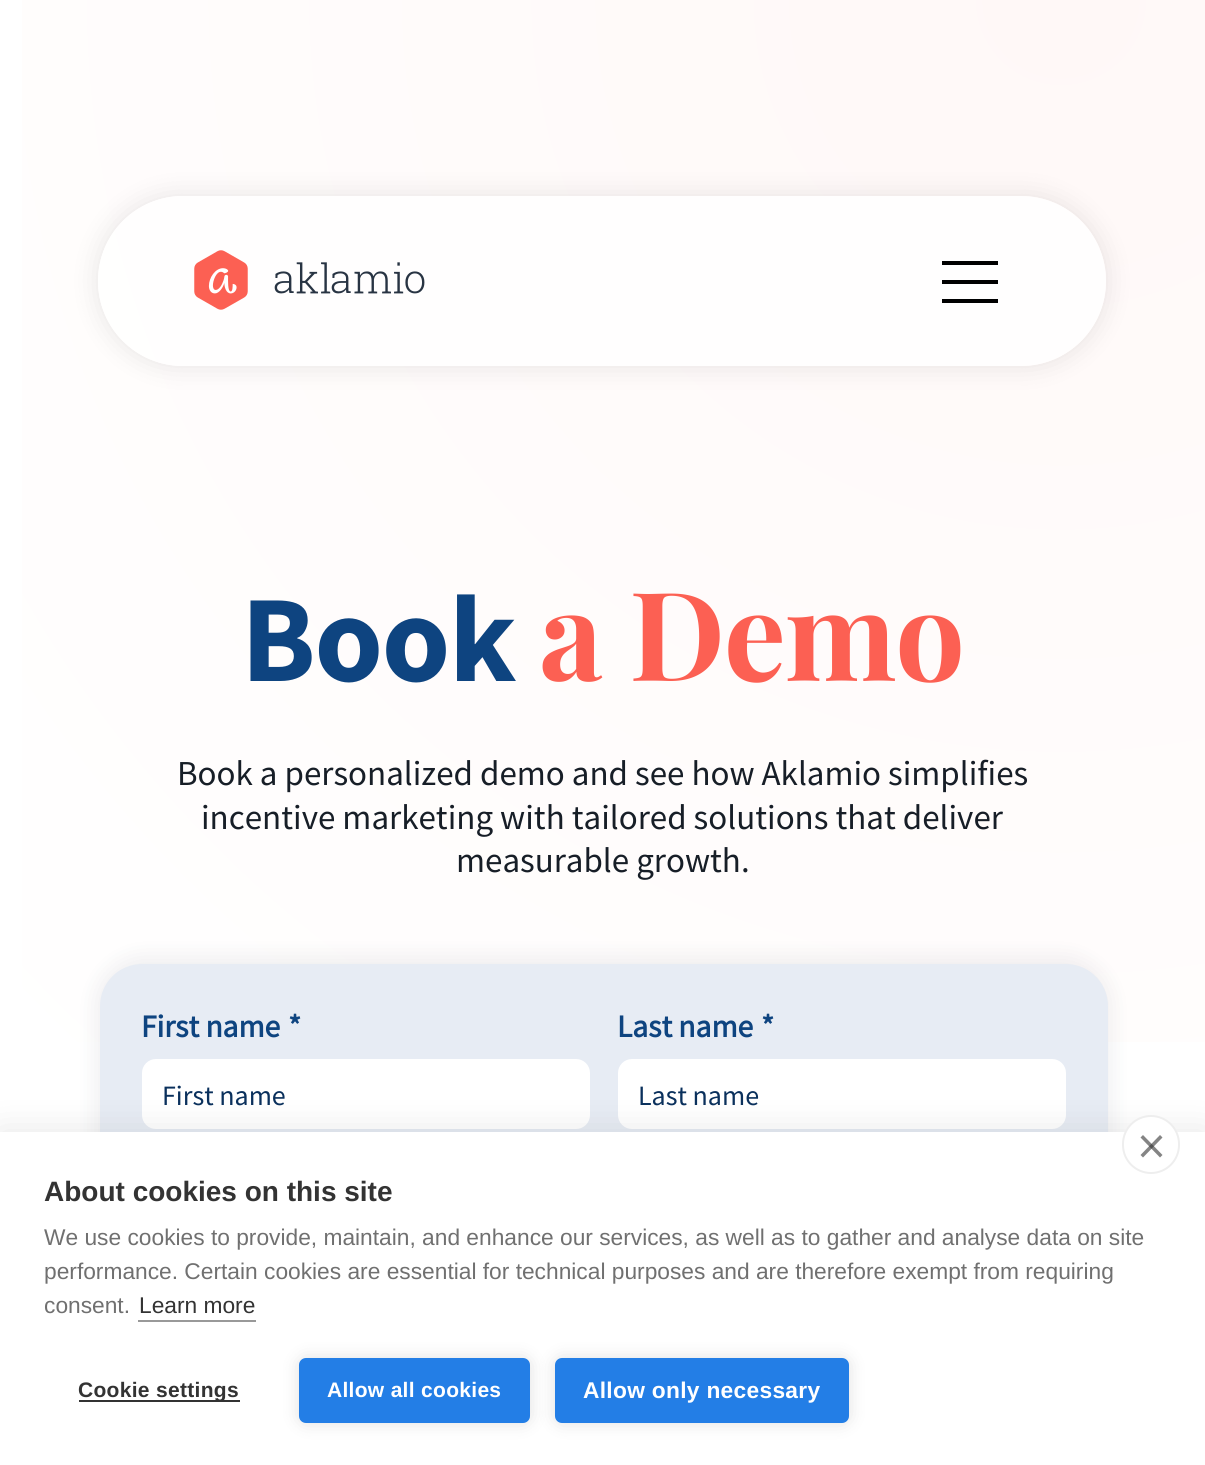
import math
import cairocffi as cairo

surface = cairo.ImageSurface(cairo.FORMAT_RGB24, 1205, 1465)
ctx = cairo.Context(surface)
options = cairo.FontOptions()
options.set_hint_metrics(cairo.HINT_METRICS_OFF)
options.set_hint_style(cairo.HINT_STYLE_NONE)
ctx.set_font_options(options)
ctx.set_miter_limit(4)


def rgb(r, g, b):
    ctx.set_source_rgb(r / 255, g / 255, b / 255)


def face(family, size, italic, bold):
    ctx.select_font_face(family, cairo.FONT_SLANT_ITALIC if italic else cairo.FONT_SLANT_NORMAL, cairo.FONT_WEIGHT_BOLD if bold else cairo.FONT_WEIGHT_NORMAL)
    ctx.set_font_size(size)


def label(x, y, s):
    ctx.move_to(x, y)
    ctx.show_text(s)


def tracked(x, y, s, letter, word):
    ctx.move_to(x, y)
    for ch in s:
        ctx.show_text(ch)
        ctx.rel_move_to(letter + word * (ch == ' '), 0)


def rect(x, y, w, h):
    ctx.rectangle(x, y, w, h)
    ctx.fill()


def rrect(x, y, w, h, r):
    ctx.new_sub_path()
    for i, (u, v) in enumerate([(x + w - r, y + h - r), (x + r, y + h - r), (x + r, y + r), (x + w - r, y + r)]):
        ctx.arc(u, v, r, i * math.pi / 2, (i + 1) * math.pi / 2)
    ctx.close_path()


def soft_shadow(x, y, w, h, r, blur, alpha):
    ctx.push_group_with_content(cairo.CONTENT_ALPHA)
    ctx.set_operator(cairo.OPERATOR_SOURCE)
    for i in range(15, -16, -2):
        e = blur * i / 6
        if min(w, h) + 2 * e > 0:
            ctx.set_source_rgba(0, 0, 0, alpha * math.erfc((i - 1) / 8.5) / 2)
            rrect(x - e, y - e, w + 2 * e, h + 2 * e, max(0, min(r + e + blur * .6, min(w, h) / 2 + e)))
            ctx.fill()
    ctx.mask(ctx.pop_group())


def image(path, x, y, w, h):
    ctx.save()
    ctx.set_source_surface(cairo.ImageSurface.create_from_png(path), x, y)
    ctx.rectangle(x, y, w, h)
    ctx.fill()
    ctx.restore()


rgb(255, 255, 255)
ctx.paint()
gradient = cairo.RadialGradient(1061, 0, 0, 1061, 0, 3187)
gradient.add_color_stop_rgba(0, 1, 0.973, 0.969, 1)
gradient.add_color_stop_rgba(0.48, 1, 1, 1, 1)
ctx.set_source(gradient)
rect(22, 0, 1183, 1042)
ctx.save()
ctx.set_fill_rule(cairo.FILL_RULE_EVEN_ODD)
ctx.new_path()
ctx.move_to(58, 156)
ctx.line_to(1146, 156)
ctx.line_to(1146, 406)
ctx.line_to(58, 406)
ctx.close_path()
ctx.move_to(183, 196)
ctx.line_to(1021, 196)
ctx.curve_to(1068, 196, 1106, 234, 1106, 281)
ctx.curve_to(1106, 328, 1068, 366, 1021, 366)
ctx.line_to(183, 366)
ctx.curve_to(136, 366, 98, 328, 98, 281)
ctx.curve_to(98, 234, 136, 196, 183, 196)
ctx.close_path()
ctx.clip()
rgb(0, 0, 0)
soft_shadow(98, 196, 1008, 170, 85, 13, 0.1)
ctx.restore()
ctx.set_source_rgba(1, 1, 1, 0.8)
rrect(98, 196, 1008, 170, 85)
ctx.fill()
image('image0.png', 194, 250, 231, 60)
rgb(0, 0, 0)
ctx.set_fill_rule(cairo.FILL_RULE_EVEN_ODD)
ctx.new_path()
ctx.move_to(998, 265)
ctx.line_to(942, 265)
ctx.line_to(942, 261)
ctx.line_to(998, 261)
ctx.close_path()
ctx.move_to(998, 284)
ctx.line_to(942, 284)
ctx.line_to(942, 280)
ctx.line_to(998, 280)
ctx.close_path()
ctx.move_to(998, 303)
ctx.line_to(942, 303)
ctx.line_to(942, 299)
ctx.line_to(998, 299)
ctx.close_path()
ctx.fill()
face('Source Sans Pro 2', 123.5, 0, 1)
rgb(14, 68, 128)
tracked(241, 681, 'Book', -1.25, 0)
face('Playfair Display', 123.5, 0, 1)
rgb(252, 96, 83)
tracked(539, 681, 'a Demo', -1.25, 0)
face('Source Sans Pro', 35, 0, 0)
rgb(23, 30, 39)
label(177, 785, 'Book a personalized demo and see how Aklamio simplifies')
label(201, 829, 'incentive marketing with tailored solutions that deliver')
label(456, 872, 'measurable growth.')
rgb(40, 52, 67)
soft_shadow(96, 957, 1015, 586, 46, 10.5, 0.08)
rgb(231, 236, 244)
rrect(100, 964, 1008, 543, 42)
ctx.fill()
face('Source Sans Pro', 31.5, 0, 1)
rgb(14, 68, 128)
label(141, 1037, 'First name')
label(288, 1037, '*')
label(617, 1037, 'Last name')
label(761, 1037, '*')
rgb(255, 255, 255)
rrect(142, 1059, 448, 70, 14)
ctx.fill()
face('Source Sans Pro', 28, 0, 0)
rgb(10, 48, 92)
label(162, 1105, 'First name')
rgb(255, 255, 255)
rrect(618, 1059, 448, 70, 14)
ctx.fill()
rgb(10, 48, 92)
label(638, 1105, 'Last name')
rgb(0, 0, 0)
soft_shadow(0, 1132, 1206, 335, 0, 17.5, 0.1)
rgb(255, 255, 255)
rect(0, 1132, 1205, 333)
rrect(1123, 1116, 56, 57, 28)
ctx.fill_preserve()
rgb(238, 238, 238)
ctx.stroke()
rgb(133, 133, 133)
ctx.set_fill_rule(cairo.FILL_RULE_WINDING)
ctx.new_path()
ctx.move_to(1140.5, 1155)
ctx.line_to(1160, 1135)
ctx.line_to(1162.5, 1137.5)
ctx.line_to(1143, 1157.5)
ctx.close_path()
ctx.fill()
ctx.set_source_rgba(0.2, 0.2, 0.2, 0.6)
ctx.new_path()
ctx.move_to(1143, 1135)
ctx.line_to(1162.5, 1155)
ctx.line_to(1160, 1157.5)
ctx.line_to(1140.5, 1137.5)
ctx.close_path()
ctx.fill()
face('Liberation Sans', 28, 0, 1)
rgb(51, 51, 51)
label(44, 1201, 'About cookies on this site')
face('Liberation Sans', 22.75, 0, 0)
rgb(112, 112, 112)
label(44, 1245, 'We use cookies to provide, maintain, and enhance our services, as well as to gather and analyse data on site')
label(44, 1279, 'performance. Certain cookies are essential for technical purposes and are therefore exempt from requiring')
label(44, 1313, 'consent.')
rgb(51, 51, 51)
label(139, 1313, 'Learn more')
rgb(153, 153, 153)
rect(138, 1320, 118, 2)
rgb(51, 51, 51)
rect(79, 1400, 161, 2)
face('Liberation Sans', 21, 0, 1)
tracked(78, 1397, 'Cookie settings', 0.3, 0)
rgb(0, 0, 0)
soft_shadow(299, 1358, 231, 65, 7, 9, 0.12)
rgb(35, 126, 230)
rrect(299, 1358, 231, 65, 7)
ctx.fill()
rgb(255, 255, 255)
tracked(327, 1397, 'Allow all cookies', 0.3, 0)
rgb(0, 0, 0)
soft_shadow(555, 1358, 294, 65, 7, 9, 0.12)
rgb(35, 126, 230)
rrect(555, 1358, 294, 65, 7)
ctx.fill()
face('Liberation Sans', 22.75, 0, 1)
rgb(255, 255, 255)
tracked(583, 1398, 'Allow only necessary', 0.3, 0)
surface.write_to_png('render.png')
